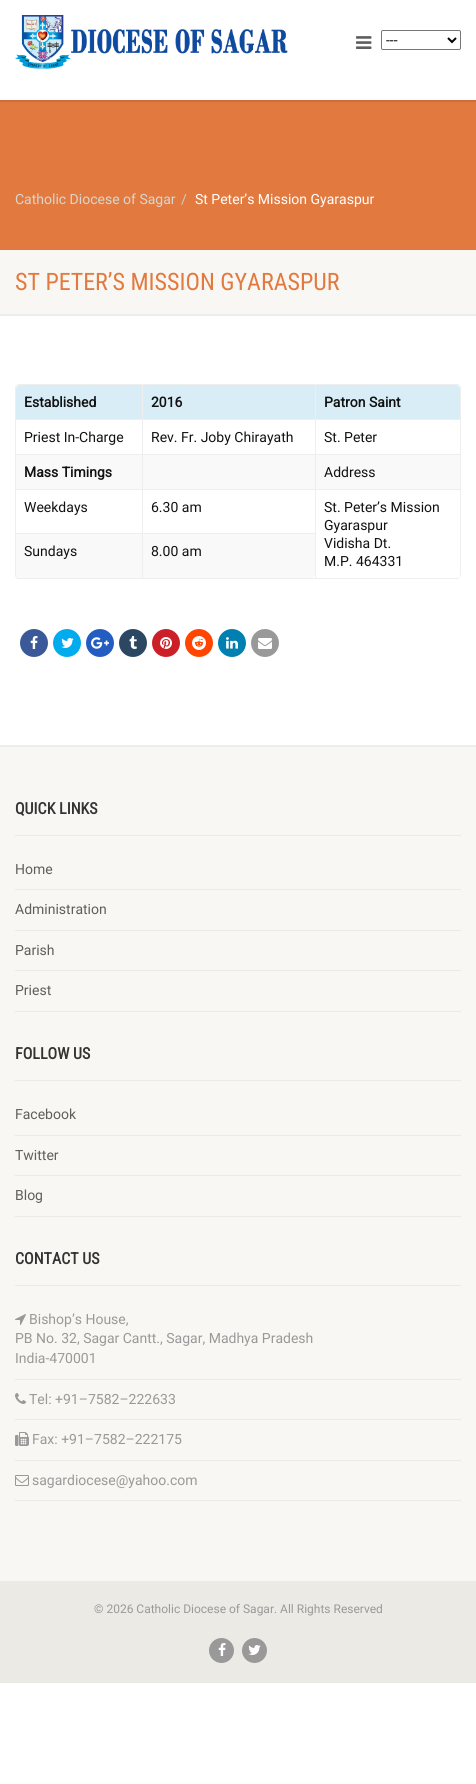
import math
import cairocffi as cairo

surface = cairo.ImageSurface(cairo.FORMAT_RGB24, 476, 1784)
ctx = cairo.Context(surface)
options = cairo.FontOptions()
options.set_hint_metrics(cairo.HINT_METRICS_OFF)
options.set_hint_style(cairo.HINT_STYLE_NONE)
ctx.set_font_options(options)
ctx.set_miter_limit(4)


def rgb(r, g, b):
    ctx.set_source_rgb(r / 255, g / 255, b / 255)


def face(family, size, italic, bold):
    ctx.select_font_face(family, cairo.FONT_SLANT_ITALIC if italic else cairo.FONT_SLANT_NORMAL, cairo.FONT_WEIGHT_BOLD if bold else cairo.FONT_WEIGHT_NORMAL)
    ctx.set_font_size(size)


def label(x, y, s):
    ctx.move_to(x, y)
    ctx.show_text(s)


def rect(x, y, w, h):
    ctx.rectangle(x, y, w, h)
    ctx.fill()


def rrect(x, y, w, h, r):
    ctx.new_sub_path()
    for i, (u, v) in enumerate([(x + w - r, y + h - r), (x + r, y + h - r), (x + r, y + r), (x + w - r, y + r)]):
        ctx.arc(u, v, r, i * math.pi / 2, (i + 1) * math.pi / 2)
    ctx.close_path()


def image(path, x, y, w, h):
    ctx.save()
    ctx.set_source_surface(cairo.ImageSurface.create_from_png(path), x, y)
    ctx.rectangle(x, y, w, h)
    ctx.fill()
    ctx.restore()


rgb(255, 255, 255)
ctx.paint()
rgb(203, 110, 57)
rect(0, 100, 476, 2)
image('image0.png', 15, 15, 273, 54)
image('image1.png', 356, 36, 16, 13)
rrect(381.5, 30.5, 79, 19, 1.5)
rgb(118, 118, 118)
ctx.set_line_width(1)
ctx.stroke()
ctx.new_path()
ctx.move_to(448, 38)
ctx.line_to(452, 42)
ctx.line_to(456, 38)
rgb(0, 0, 0)
ctx.set_line_width(2)
ctx.stroke()
face('Roboto', 14, 0, 0)
label(386, 45, '---')
rgb(226, 122, 63)
rect(0, 102, 476, 148)
rgb(216, 214, 209)
label(15, 204, 'Catholic Diocese of Sagar')
rgb(204, 204, 204)
label(181, 204, '/')
rgb(255, 255, 255)
label(195, 204, 'St Peter’s Mission Gyaraspur')
rgb(237, 237, 237)
rect(0, 314, 476, 2)
rgb(248, 247, 243)
rect(0, 250, 476, 64)
face('Roboto Condensed', 24, 0, 0)
rgb(226, 122, 63)
label(15, 290, 'ST PETER’S MISSION GYARASPUR')
rrect(15.5, 384.5, 445, 194, 3.5)
rgb(238, 238, 238)
ctx.set_line_width(1)
ctx.stroke()
rgb(217, 237, 247)
ctx.new_path()
ctx.move_to(20, 385)
ctx.line_to(142, 385)
ctx.line_to(142, 419)
ctx.line_to(16, 419)
ctx.line_to(16, 389)
ctx.curve_to(16, 387, 18, 385, 20, 385)
ctx.close_path()
ctx.fill()
face('Roboto', 14, 0, 1)
rgb(17, 17, 17)
label(24, 407, 'Established')
rgb(217, 237, 247)
rect(143, 385, 172, 34)
rgb(238, 238, 238)
rect(142, 385, 1, 34)
rgb(17, 17, 17)
label(151, 407, '2016')
rgb(217, 237, 247)
ctx.new_path()
ctx.move_to(315, 385)
ctx.line_to(456, 385)
ctx.curve_to(458, 385, 460, 387, 460, 389)
ctx.line_to(460, 419)
ctx.line_to(315, 419)
ctx.close_path()
ctx.fill()
rgb(238, 238, 238)
rect(315, 385, 1, 34)
rgb(17, 17, 17)
label(324, 407, 'Patron Saint')
rgb(238, 238, 238)
rect(16, 419, 444, 1)
face('Roboto', 14, 0, 0)
rgb(17, 17, 17)
label(24, 442, 'Priest In-Charge')
rgb(238, 238, 238)
rect(142, 419, 1, 35)
rgb(17, 17, 17)
label(151, 442, 'Rev. Fr. Joby Chirayath')
rgb(238, 238, 238)
rect(315, 419, 1, 35)
rgb(17, 17, 17)
label(324, 442, 'St. Peter')
rgb(249, 249, 249)
rect(16, 455, 126, 34)
rgb(238, 238, 238)
rect(16, 454, 444, 1)
face('Roboto', 14, 0, 1)
rgb(17, 17, 17)
label(24, 477, 'Mass Timings')
rgb(249, 249, 249)
rect(143, 455, 172, 34)
rgb(238, 238, 238)
rect(142, 454, 1, 35)
rgb(249, 249, 249)
rect(316, 455, 144, 34)
rgb(238, 238, 238)
rect(315, 454, 1, 35)
face('Roboto', 14, 0, 0)
rgb(17, 17, 17)
label(324, 477, 'Address')
rgb(238, 238, 238)
rect(16, 489, 444, 1)
rgb(17, 17, 17)
label(24, 512, 'Weekdays')
rgb(238, 238, 238)
rect(142, 489, 1, 44)
rgb(17, 17, 17)
label(151, 512, '6.30 am')
rgb(255, 255, 255)
rect(458, 576, 2, 2)
rgb(238, 238, 238)
rect(315, 489, 1, 89)
rgb(17, 17, 17)
label(324, 512, 'St. Peter’s Mission')
label(324, 530, 'Gyaraspur')
label(324, 548, 'Vidisha Dt.')
label(324, 566, 'M.P. 464331')
rgb(249, 249, 249)
ctx.new_path()
ctx.move_to(16, 533)
ctx.line_to(142, 533)
ctx.line_to(142, 578)
ctx.line_to(20, 578)
ctx.curve_to(18, 578, 16, 576, 16, 574)
ctx.close_path()
ctx.fill()
rgb(238, 238, 238)
rect(16, 533, 126, 1)
rgb(17, 17, 17)
label(24, 556, 'Sundays')
rgb(249, 249, 249)
ctx.new_path()
ctx.move_to(142, 533)
ctx.line_to(315, 533)
ctx.line_to(315, 574)
ctx.curve_to(315, 576, 313, 578, 311, 578)
ctx.line_to(142, 578)
ctx.close_path()
ctx.fill()
rgb(238, 238, 238)
rect(142, 533, 173, 1)
rect(142, 533, 1, 45)
rgb(17, 17, 17)
label(151, 556, '8.00 am')
rgb(59, 89, 152)
ctx.new_path()
ctx.arc(34, 643, 14, 0, 2 * math.pi)
ctx.fill()
image('image2.png', 30, 636, 8, 13)
rgb(0, 172, 237)
ctx.arc(67, 643, 14, 0, 2 * math.pi)
ctx.fill()
image('image3.png', 61, 638, 13, 10)
rgb(36, 93, 193)
ctx.arc(100, 643, 14, 0, 2 * math.pi)
ctx.fill()
image('image4.png', 91, 637, 18, 12)
rgb(44, 71, 98)
ctx.arc(133, 643, 14, 0, 2 * math.pi)
ctx.fill()
image('image5.png', 129, 636, 8, 13)
rgb(203, 32, 39)
ctx.arc(166, 643, 14, 0, 2 * math.pi)
ctx.fill()
image('image6.png', 160, 637, 12, 12)
rgb(255, 69, 0)
ctx.arc(199, 643, 14, 0, 2 * math.pi)
ctx.fill()
image('image7.png', 192, 636, 14, 14)
rgb(0, 127, 177)
ctx.arc(232, 643, 14, 0, 2 * math.pi)
ctx.fill()
image('image8.png', 226, 637, 12, 12)
rgb(153, 153, 153)
ctx.arc(265, 643, 14, 0, 2 * math.pi)
ctx.fill()
image('image9.png', 258, 638, 14, 11)
rgb(237, 237, 237)
rect(0, 745, 476, 2)
rgb(248, 247, 243)
rect(0, 747, 476, 834)
face('Roboto Condensed', 16, 0, 1)
rgb(51, 51, 51)
label(15, 814, 'QUICK LINKS')
rgb(236, 234, 228)
rect(15, 835, 446, 1)
rect(15, 889, 446, 1)
face('Roboto', 14, 0, 0)
rgb(94, 94, 94)
label(15, 874, 'Home')
rgb(236, 234, 228)
rect(15, 930, 446, 1)
rgb(94, 94, 94)
label(15, 914, 'Administration')
rgb(236, 234, 228)
rect(15, 970, 446, 1)
rgb(94, 94, 94)
label(15, 955, 'Parish')
rgb(236, 234, 228)
rect(15, 1011, 446, 1)
rgb(94, 94, 94)
label(15, 995, 'Priest')
face('Roboto Condensed', 16, 0, 1)
rgb(51, 51, 51)
label(15, 1059, 'FOLLOW US')
rgb(236, 234, 228)
rect(15, 1080, 446, 1)
rect(15, 1135, 446, 1)
face('Roboto', 14, 0, 0)
rgb(94, 94, 94)
label(15, 1119, 'Facebook')
rgb(236, 234, 228)
rect(15, 1175, 446, 1)
rgb(94, 94, 94)
label(15, 1160, 'Twitter')
rgb(236, 234, 228)
rect(15, 1216, 446, 1)
rgb(94, 94, 94)
label(15, 1200, 'Blog')
face('Roboto Condensed', 16, 0, 1)
rgb(51, 51, 51)
label(15, 1264, 'CONTACT US')
rgb(236, 234, 228)
rect(15, 1285, 446, 1)
rect(15, 1379, 446, 1)
image('image10.png', 15, 1314, 11, 11)
face('Roboto', 14, 0, 0)
rgb(153, 153, 153)
label(29, 1324, 'Bishop’s House,')
label(15, 1343, 'PB No. 32, Sagar Cantt., Sagar, Madhya Pradesh')
label(15, 1363, 'India-470001')
rgb(236, 234, 228)
rect(15, 1419, 446, 1)
image('image11.png', 15, 1393, 11, 11)
rgb(153, 153, 153)
label(29, 1404, 'Tel: +91–7582–222633')
rgb(236, 234, 228)
rect(15, 1460, 446, 1)
image('image12.png', 15, 1432, 14, 14)
rgb(153, 153, 153)
label(32, 1444, 'Fax: +91–7582–222175')
rgb(236, 234, 228)
rect(15, 1500, 446, 1)
image('image13.png', 15, 1475, 14, 11)
rgb(153, 153, 153)
label(32, 1485, 'sagardiocese@yahoo.com')
rgb(236, 234, 228)
rect(0, 1581, 476, 102)
face('Roboto', 12, 0, 0)
rgb(153, 153, 153)
label(94, 1613, '© 2026 Catholic Diocese of Sagar. All Rights Reserved')
ctx.new_path()
ctx.arc(221.5, 1650.5, 12.5, 0, 2 * math.pi)
ctx.fill()
image('image14.png', 218, 1643, 8, 13)
ctx.arc(254.5, 1650.5, 12.5, 0, 2 * math.pi)
ctx.fill()
image('image15.png', 248, 1645, 13, 10)
surface.write_to_png('render.png')
